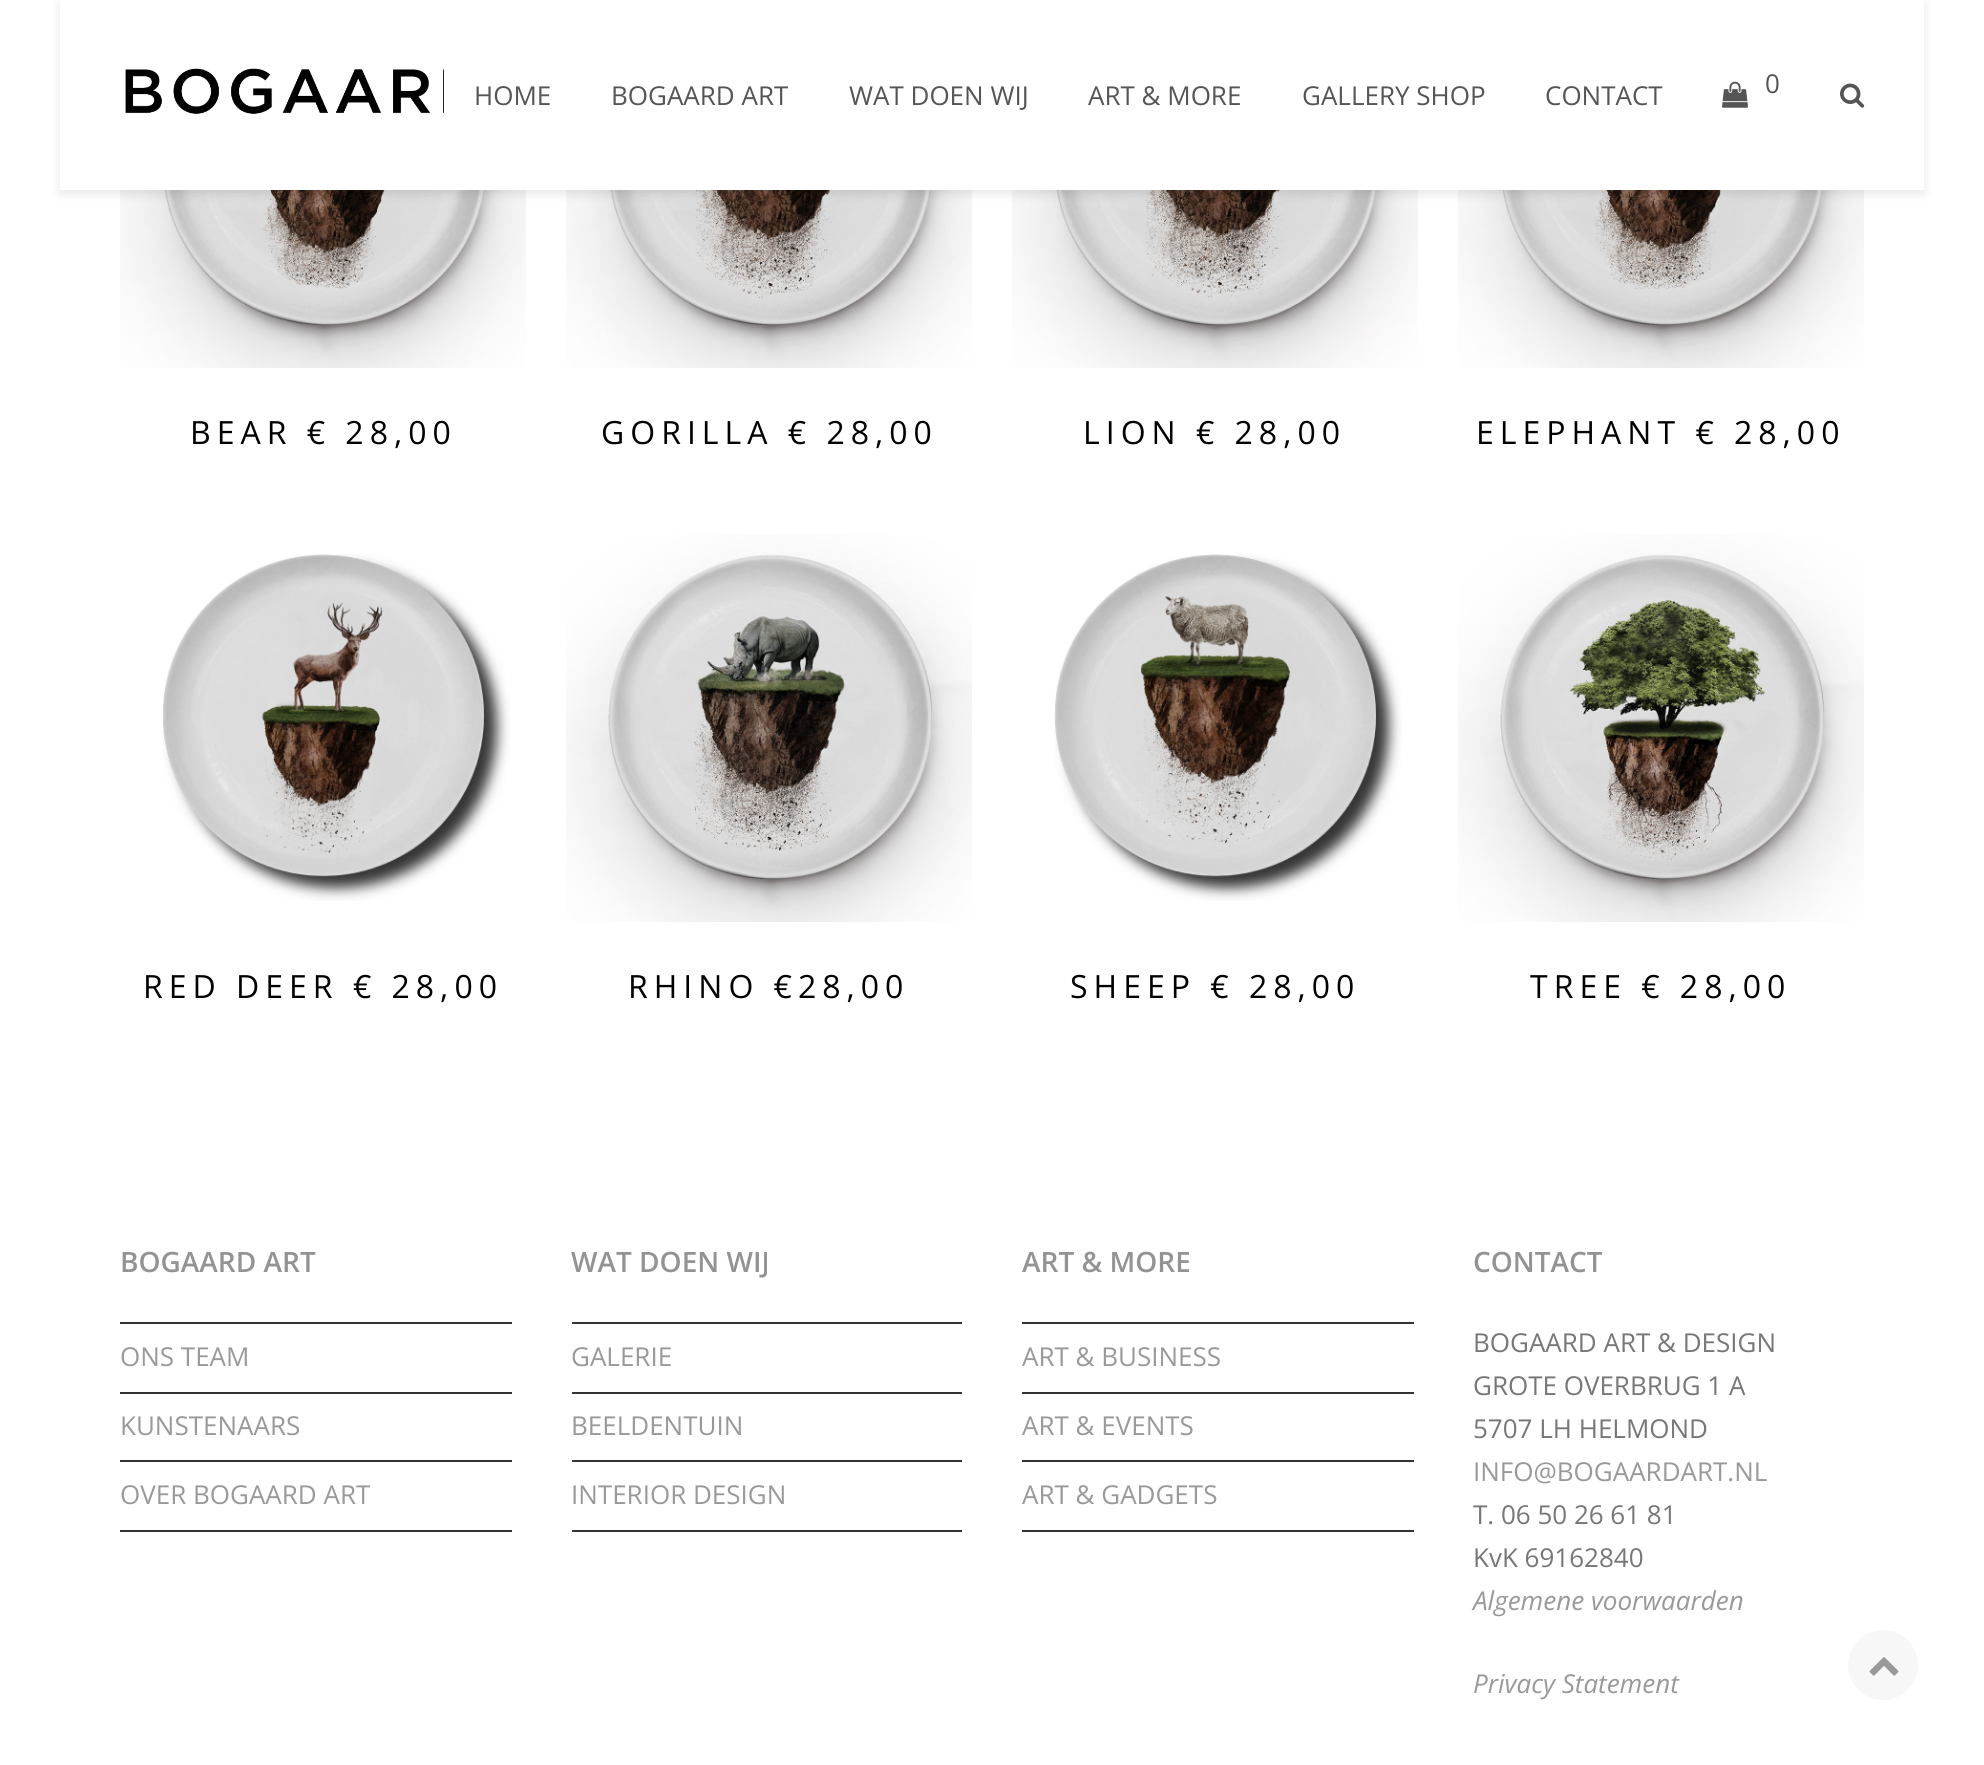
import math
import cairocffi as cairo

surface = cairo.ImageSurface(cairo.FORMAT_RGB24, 1984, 1765)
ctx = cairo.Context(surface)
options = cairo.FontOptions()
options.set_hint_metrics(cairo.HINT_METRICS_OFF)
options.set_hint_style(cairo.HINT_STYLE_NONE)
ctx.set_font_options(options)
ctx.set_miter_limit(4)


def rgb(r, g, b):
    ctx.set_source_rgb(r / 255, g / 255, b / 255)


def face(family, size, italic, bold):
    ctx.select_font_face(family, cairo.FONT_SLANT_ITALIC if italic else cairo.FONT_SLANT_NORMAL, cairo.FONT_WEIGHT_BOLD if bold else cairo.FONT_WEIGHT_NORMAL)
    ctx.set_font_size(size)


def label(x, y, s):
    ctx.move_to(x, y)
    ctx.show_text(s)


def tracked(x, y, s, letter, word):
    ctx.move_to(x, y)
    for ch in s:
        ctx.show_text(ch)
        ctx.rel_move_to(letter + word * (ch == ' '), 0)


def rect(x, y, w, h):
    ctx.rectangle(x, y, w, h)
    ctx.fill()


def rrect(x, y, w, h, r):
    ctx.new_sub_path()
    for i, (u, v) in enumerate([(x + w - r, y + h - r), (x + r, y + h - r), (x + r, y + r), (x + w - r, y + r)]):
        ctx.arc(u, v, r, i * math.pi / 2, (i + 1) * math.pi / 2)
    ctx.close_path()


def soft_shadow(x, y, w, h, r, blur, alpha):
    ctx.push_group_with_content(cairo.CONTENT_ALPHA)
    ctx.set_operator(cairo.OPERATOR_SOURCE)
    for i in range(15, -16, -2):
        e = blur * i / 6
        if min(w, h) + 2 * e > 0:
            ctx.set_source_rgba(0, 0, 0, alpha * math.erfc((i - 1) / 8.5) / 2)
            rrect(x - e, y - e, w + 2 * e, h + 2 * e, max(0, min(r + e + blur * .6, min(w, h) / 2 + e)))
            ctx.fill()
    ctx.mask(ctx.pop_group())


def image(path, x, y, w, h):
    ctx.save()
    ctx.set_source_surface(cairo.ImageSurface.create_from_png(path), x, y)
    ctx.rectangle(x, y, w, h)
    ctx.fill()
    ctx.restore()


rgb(255, 255, 255)
ctx.paint()
image('image3.png', 120, 190, 406, 178)
image('image4.png', 566, 190, 406, 178)
image('image5.png', 1012, 190, 406, 178)
image('image6.png', 1458, 190, 406, 178)
rgb(0, 0, 0)
soft_shadow(60, 4, 1864, 190, 0, 5, 0.1)
rgb(255, 255, 255)
rect(60, 0, 1864, 190)
image('image0.png', 125, 68, 319, 46)
face('Open Sans', 26, 0, 0)
rgb(85, 85, 85)
label(474, 105, 'HOME')
label(611, 105, 'BOGAARD ART')
label(849, 105, 'WAT DOEN WIJ')
label(1088, 105, 'ART & MORE')
label(1302, 105, 'GALLERY SHOP')
label(1545, 105, 'CONTACT')
image('image1.png', 1722, 81, 26, 27)
label(1765, 93, '0')
image('image2.png', 1840, 83, 25, 25)
face('Open Sans', 32, 0, 0)
rgb(0, 0, 0)
tracked(190, 444, 'BEAR € 28,00', 6, 0)
tracked(601, 444, 'GORILLA € 28,00', 6, 0)
tracked(1083, 444, 'LION € 28,00', 6, 0)
tracked(1476, 444, 'ELEPHANT € 28,00', 6, 0)
image('image7.png', 162, 554, 348, 347)
tracked(143, 998, 'RED DEER € 28,00', 6, 0)
image('image8.png', 566, 534, 406, 388)
tracked(628, 998, 'RHINO €28,00', 6, 0)
image('image9.png', 1054, 554, 348, 347)
tracked(1070, 998, 'SHEEP € 28,00', 6, 0)
image('image10.png', 1458, 534, 406, 388)
tracked(1530, 998, 'TREE € 28,00', 6, 0)
face('Open Sans SemiBold', 28, 0, 0)
rgb(147, 147, 147)
label(120, 1272, 'BOGAARD ART')
rgb(51, 51, 51)
rect(120, 1322, 392, 2)
rect(120, 1392, 392, 2)
face('Open Sans', 26, 0, 0)
rgb(153, 153, 153)
label(120, 1366, 'ONS TEAM')
rgb(51, 51, 51)
rect(120, 1460, 392, 2)
rgb(153, 153, 153)
label(120, 1435, 'KUNSTENAARS')
rgb(51, 51, 51)
rect(120, 1530, 392, 2)
rgb(153, 153, 153)
label(120, 1504, 'OVER BOGAARD ART')
face('Open Sans SemiBold', 28, 0, 0)
rgb(147, 147, 147)
label(571, 1272, 'WAT DOEN WIJ')
rgb(51, 51, 51)
rect(572, 1322, 390, 2)
rect(572, 1392, 390, 2)
face('Open Sans', 26, 0, 0)
rgb(153, 153, 153)
label(571, 1366, 'GALERIE')
rgb(51, 51, 51)
rect(572, 1460, 390, 2)
rgb(153, 153, 153)
label(571, 1435, 'BEELDENTUIN')
rgb(51, 51, 51)
rect(572, 1530, 390, 2)
rgb(153, 153, 153)
label(571, 1504, 'INTERIOR DESIGN')
face('Open Sans SemiBold', 28, 0, 0)
rgb(147, 147, 147)
label(1022, 1272, 'ART & MORE')
rgb(51, 51, 51)
rect(1022, 1322, 392, 2)
rect(1022, 1392, 392, 2)
face('Open Sans', 26, 0, 0)
rgb(153, 153, 153)
label(1022, 1366, 'ART & BUSINESS')
rgb(51, 51, 51)
rect(1022, 1460, 392, 2)
rgb(153, 153, 153)
label(1022, 1435, 'ART & EVENTS')
rgb(51, 51, 51)
rect(1022, 1530, 392, 2)
rgb(153, 153, 153)
label(1022, 1504, 'ART & GADGETS')
face('Open Sans SemiBold', 28, 0, 0)
rgb(147, 147, 147)
label(1473, 1272, 'CONTACT')
face('Open Sans', 26, 0, 0)
rgb(119, 119, 119)
label(1473, 1352, 'BOGAARD ART & DESIGN')
label(1473, 1395, 'GROTE OVERBRUG 1 A')
label(1473, 1438, '5707 LH HELMOND')
rgb(153, 153, 153)
label(1473, 1481, 'INFO@BOGAARDART.NL')
rgb(119, 119, 119)
label(1473, 1524, 'T. 06 50 26 61 81')
label(1473, 1567, 'KvK 69162840')
face('Open Sans', 26, 1, 0)
rgb(153, 153, 153)
label(1473, 1610, 'Algemene voorwaarden')
label(1473, 1693, 'Privacy Statement')
rgb(247, 247, 247)
ctx.new_path()
ctx.arc(1883, 1665, 38, 0, 2 * math.pi)
ctx.fill_preserve()
rgb(255, 255, 255)
ctx.set_line_width(6)
ctx.stroke()
image('image11.png', 1869, 1657, 30, 19)
surface.write_to_png('render.png')
